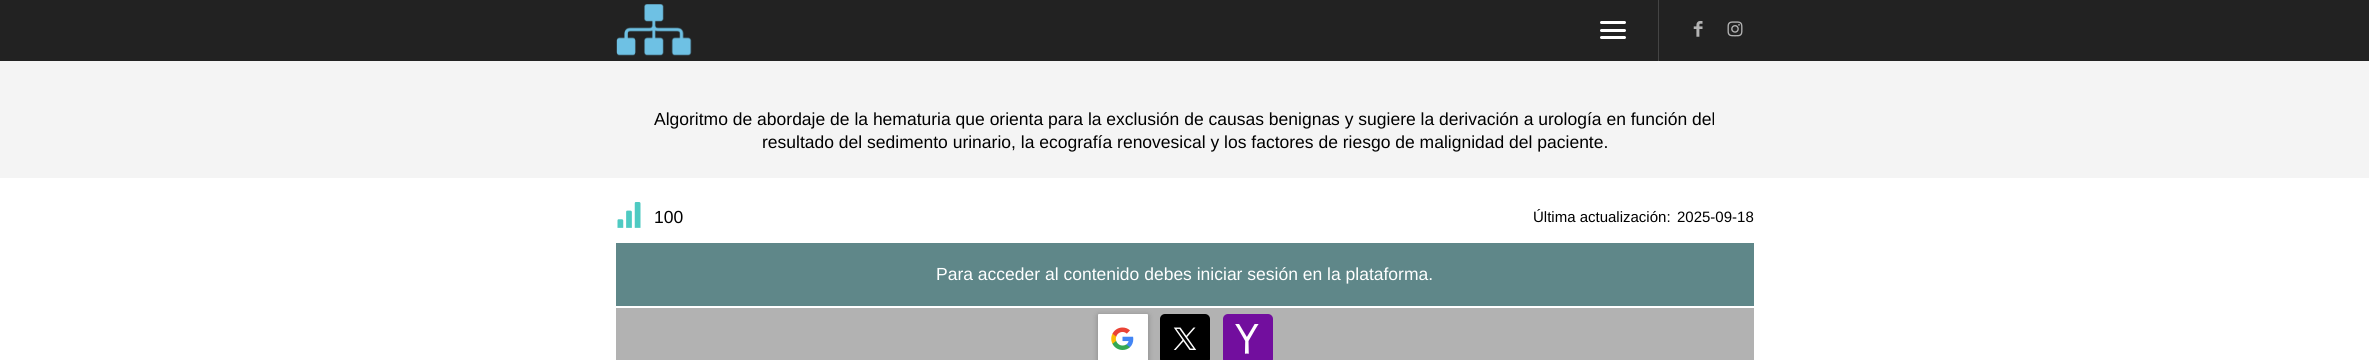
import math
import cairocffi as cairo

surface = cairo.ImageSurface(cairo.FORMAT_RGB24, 2369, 360)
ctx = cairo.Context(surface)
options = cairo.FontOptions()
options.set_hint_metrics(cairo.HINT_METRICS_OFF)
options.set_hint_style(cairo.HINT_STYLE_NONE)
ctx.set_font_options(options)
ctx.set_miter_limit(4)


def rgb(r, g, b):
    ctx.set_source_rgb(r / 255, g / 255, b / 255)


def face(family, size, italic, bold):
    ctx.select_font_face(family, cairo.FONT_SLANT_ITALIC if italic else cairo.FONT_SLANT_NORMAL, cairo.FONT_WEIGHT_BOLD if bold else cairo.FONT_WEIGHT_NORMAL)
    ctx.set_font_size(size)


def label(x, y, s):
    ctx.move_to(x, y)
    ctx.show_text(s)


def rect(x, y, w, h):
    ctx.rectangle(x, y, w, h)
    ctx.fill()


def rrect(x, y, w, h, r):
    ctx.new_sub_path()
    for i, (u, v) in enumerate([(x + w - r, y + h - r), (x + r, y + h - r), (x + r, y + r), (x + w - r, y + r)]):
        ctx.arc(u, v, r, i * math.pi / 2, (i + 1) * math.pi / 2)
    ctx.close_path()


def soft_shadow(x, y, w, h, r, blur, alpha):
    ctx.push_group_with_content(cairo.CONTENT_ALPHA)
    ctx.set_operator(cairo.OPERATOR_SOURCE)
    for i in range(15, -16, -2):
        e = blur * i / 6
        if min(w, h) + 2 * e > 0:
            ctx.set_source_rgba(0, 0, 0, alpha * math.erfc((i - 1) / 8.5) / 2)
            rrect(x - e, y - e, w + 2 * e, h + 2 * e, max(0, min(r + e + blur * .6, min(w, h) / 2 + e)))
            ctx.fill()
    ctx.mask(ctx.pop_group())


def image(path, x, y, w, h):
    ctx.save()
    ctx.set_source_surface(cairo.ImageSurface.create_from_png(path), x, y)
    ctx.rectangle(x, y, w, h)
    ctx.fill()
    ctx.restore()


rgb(244, 244, 244)
ctx.paint()
rgb(34, 34, 34)
rect(0, 0, 2369, 61)
image('image0.png', 616, 4, 76, 52)
rgb(68, 68, 68)
rect(1658, 0, 1, 61)
rgb(255, 255, 255)
rrect(1600, 29, 26, 3, 1.5)
ctx.fill()
rrect(1600, 21, 26, 3, 1.5)
ctx.fill()
rrect(1600, 36, 26, 3, 1.5)
ctx.fill()
image('image1.png', 1693, 21, 10, 16)
image('image2.png', 1727, 21, 16, 16)
face('Liberation Sans', 17.5, 0, 0)
rgb(0, 0, 0)
label(654, 125, 'Algoritmo de abordaje de la hematuria que orienta para la exclusión de causas benignas y sugiere la derivación a urología en función del')
label(762, 148, 'resultado del sedimento urinario, la ecografía renovesical y los factores de riesgo de malignidad del paciente.')
rgb(255, 255, 255)
rect(0, 178, 2369, 182)
image('image3.png', 617, 202, 24, 26)
rgb(0, 0, 0)
label(654, 223, '100')
face('Liberation Sans', 15, 0, 0)
label(1533, 222, 'Última actualización:')
label(1677, 222, '2025-09-18')
rgb(95, 135, 137)
rect(616, 243, 1138, 63)
face('Liberation Sans', 17.5, 0, 0)
rgb(255, 255, 255)
label(936, 280, 'Para acceder al contenido debes iniciar sesión en la plataforma.')
rgb(178, 178, 178)
rect(616, 308, 1138, 52)
rgb(0, 0, 0)
soft_shadow(1098, 315, 50, 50, 1, 3, 0.25)
rgb(255, 255, 255)
rrect(1098, 314, 50, 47, 1)
ctx.fill()
image('image4.png', 1111, 327, 23, 23)
rgb(0, 0, 0)
rrect(1160, 314, 50, 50, 5)
ctx.fill()
image('image5.png', 1173, 327, 24, 23)
rgb(114, 14, 158)
rrect(1223, 314, 50, 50, 5)
ctx.fill()
image('image6.png', 1235, 324, 24, 30)
surface.write_to_png('render.png')
